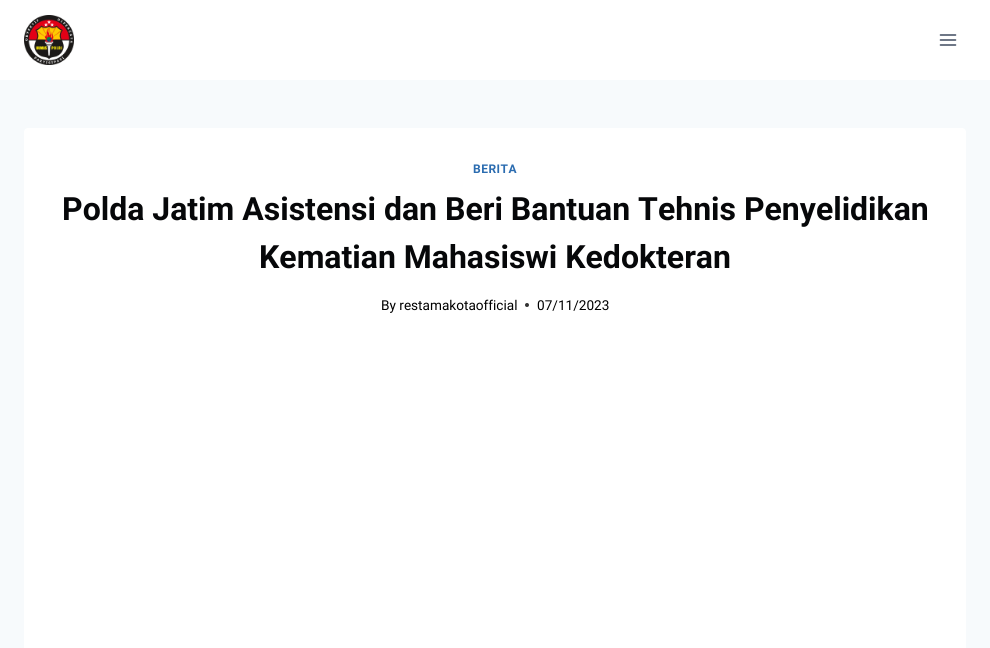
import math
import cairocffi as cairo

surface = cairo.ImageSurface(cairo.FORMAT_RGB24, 990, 648)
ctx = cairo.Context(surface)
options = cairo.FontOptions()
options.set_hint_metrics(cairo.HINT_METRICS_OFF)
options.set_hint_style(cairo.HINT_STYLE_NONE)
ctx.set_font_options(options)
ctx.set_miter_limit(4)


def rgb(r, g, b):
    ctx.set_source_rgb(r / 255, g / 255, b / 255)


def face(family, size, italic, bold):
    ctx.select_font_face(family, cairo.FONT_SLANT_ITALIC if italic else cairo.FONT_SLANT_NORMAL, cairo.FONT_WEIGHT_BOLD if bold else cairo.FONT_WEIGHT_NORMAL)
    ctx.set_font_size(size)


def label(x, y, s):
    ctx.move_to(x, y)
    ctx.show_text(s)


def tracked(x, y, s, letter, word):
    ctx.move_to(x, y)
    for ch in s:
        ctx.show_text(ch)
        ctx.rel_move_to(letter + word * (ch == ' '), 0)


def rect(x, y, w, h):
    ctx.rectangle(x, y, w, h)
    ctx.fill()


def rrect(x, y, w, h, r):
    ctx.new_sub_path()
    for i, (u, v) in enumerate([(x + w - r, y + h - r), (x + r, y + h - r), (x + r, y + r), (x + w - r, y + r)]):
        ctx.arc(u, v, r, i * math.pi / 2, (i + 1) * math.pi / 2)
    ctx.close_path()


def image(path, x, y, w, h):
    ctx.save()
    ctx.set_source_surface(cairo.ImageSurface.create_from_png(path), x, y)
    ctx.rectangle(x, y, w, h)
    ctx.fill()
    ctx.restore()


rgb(247, 250, 252)
ctx.paint()
rgb(255, 255, 255)
rect(0, 0, 990, 80)
image('image0.png', 24, 15, 50, 50)
image('image1.png', 939, 34, 18, 12)
rrect(24, 128, 942, 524, 4)
ctx.fill()
face('Roboto', 12, 0, 1)
rgb(43, 108, 176)
tracked(473, 173, 'BERITA', 0.5, 0)
face('Roboto', 32, 0, 1)
rgb(6, 7, 9)
label(62, 220, 'Polda Jatim Asistensi dan Beri Bantuan Tehnis Penyelidikan')
label(259, 268, 'Kematian Mahasiswi Kedokteran')
face('Roboto', 13.6, 0, 0)
rgb(0, 0, 0)
label(381, 310, 'By restamakotaofficial')
rgb(51, 51, 51)
ctx.new_path()
ctx.arc(527, 305, 2, 0, 2 * math.pi)
ctx.fill()
rgb(0, 0, 0)
label(537, 310, '07/11/2023')
surface.write_to_png('render.png')
